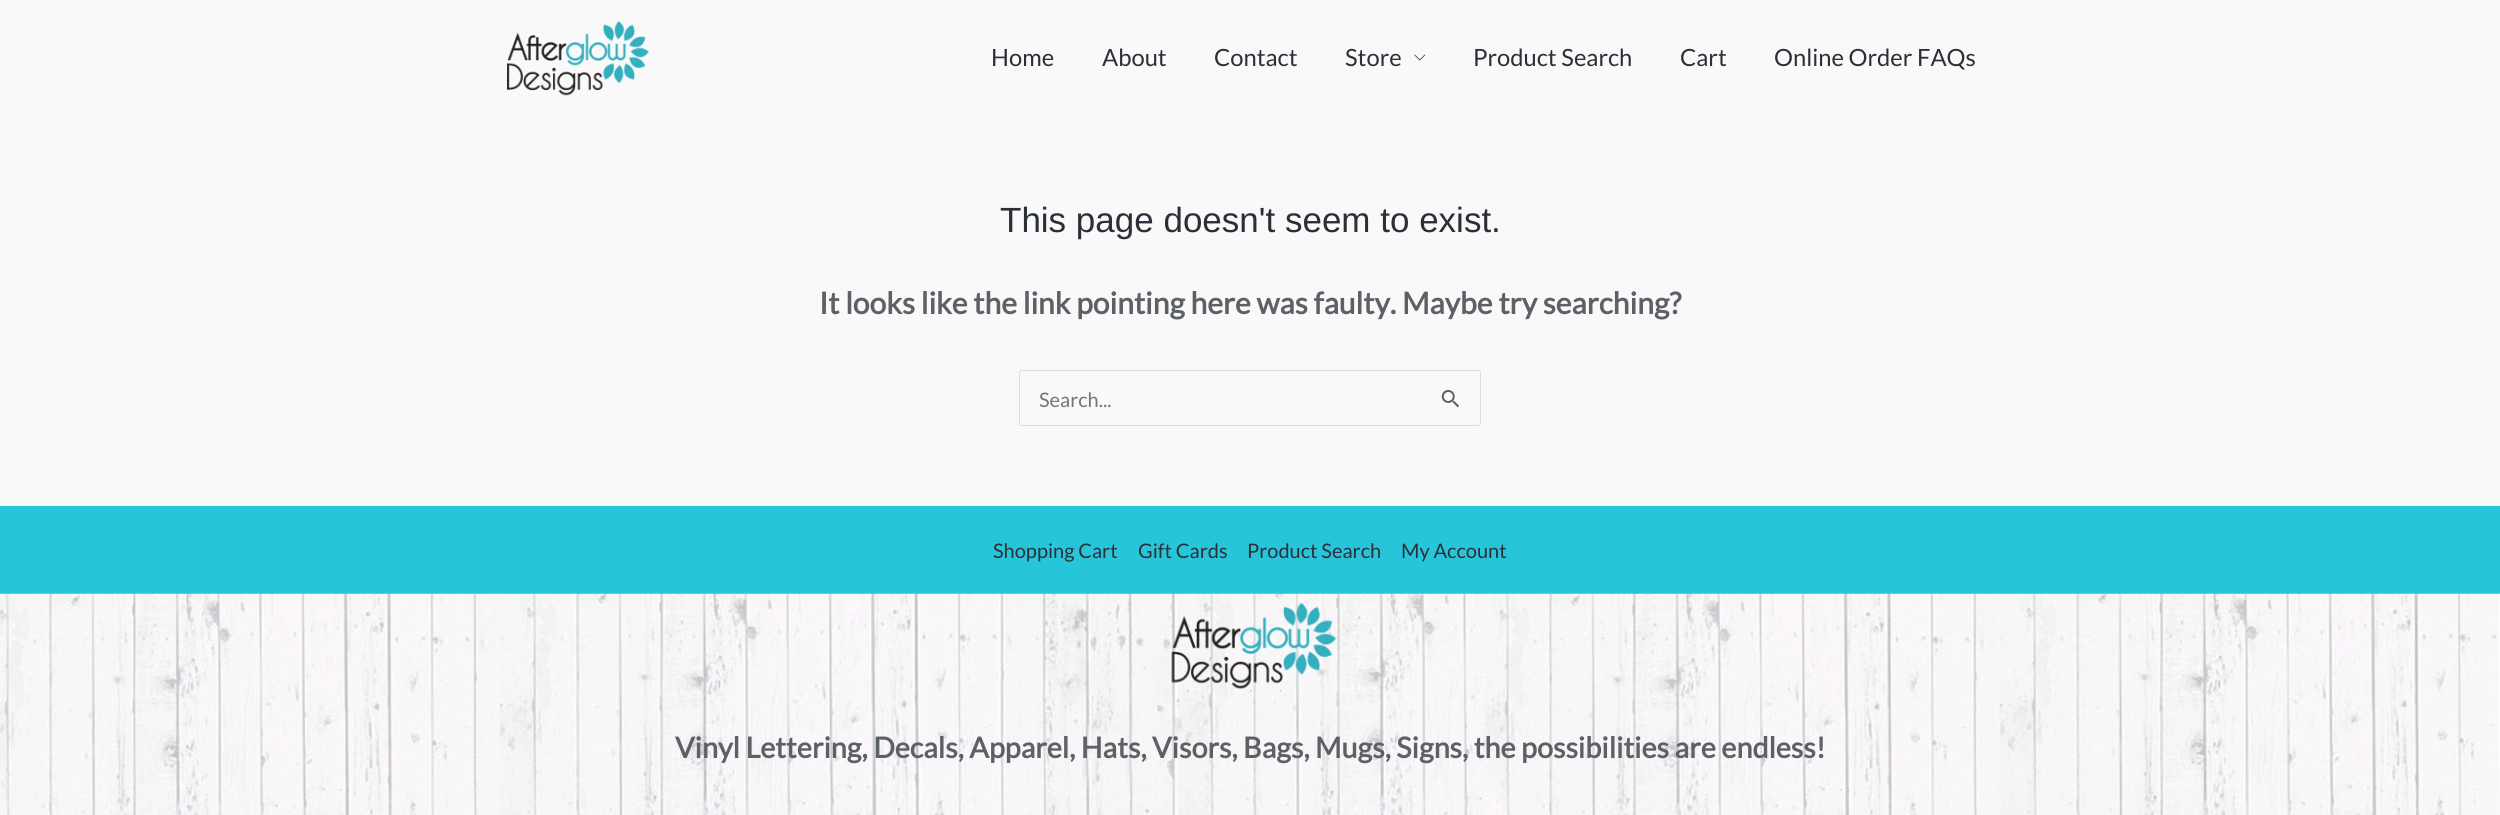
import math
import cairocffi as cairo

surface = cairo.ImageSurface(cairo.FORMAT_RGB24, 2500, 815)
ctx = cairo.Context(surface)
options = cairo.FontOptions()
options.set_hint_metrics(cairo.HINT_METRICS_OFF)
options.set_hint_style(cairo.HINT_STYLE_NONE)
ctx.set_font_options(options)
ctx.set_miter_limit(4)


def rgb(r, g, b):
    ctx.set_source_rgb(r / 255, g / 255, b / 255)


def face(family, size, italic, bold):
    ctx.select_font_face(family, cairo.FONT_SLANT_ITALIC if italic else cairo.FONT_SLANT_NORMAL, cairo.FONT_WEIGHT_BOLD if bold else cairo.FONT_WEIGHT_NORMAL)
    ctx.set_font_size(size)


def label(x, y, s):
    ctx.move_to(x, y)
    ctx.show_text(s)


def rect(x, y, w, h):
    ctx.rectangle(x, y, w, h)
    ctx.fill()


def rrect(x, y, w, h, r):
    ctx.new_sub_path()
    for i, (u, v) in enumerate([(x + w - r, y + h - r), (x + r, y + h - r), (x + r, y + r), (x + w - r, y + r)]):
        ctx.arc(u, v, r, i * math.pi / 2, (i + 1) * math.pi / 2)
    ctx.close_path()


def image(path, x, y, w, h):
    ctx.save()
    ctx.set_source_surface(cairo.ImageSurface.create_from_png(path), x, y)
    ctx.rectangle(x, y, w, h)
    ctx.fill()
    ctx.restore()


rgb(249, 249, 249)
ctx.paint()
image('image0.png', 507, 21, 142, 75)
face('Lato', 23.75, 0, 0)
rgb(43, 47, 56)
label(991, 66, 'Home')
label(1102, 66, 'About')
label(1214, 66, 'Contact')
label(1345, 66, 'Store')
image('image1.png', 1414, 54, 12, 7)
label(1473, 66, 'Product Search')
label(1680, 66, 'Cart')
label(1774, 66, 'Online Order FAQs')
face('Liberation Sans', 35, 0, 0)
label(1000, 232, 'This page doesn\'t seem to exist.')
face('Lato', 30, 0, 1)
rgb(93, 97, 103)
label(819, 314, 'It looks like the link pointing here was faulty. Maybe try searching?')
rrect(1019.5, 370.5, 461, 55, 2)
rgb(221, 221, 221)
ctx.set_line_width(1)
ctx.stroke()
face('Lato', 20, 0, 0)
rgb(117, 117, 117)
label(1039, 407, 'Search...')
image('image2.png', 1441, 390, 19, 18)
rgb(39, 197, 217)
rect(0, 506, 2500, 88)
rgb(43, 47, 56)
label(993, 558, 'Shopping Cart')
label(1138, 558, 'Gift Cards')
label(1247, 558, 'Product Search')
label(1401, 558, 'My Account')
image('image3.png', 0, 593, 2500, 222)
image('image4.png', 1171, 603, 166, 89)
face('Lato', 28.75, 0, 1)
rgb(93, 97, 103)
label(675, 758, 'Vinyl Lettering, Decals, Apparel, Hats, Visors, Bags, Mugs, Signs, the possibilities are endless!')
surface.write_to_png('render.png')
